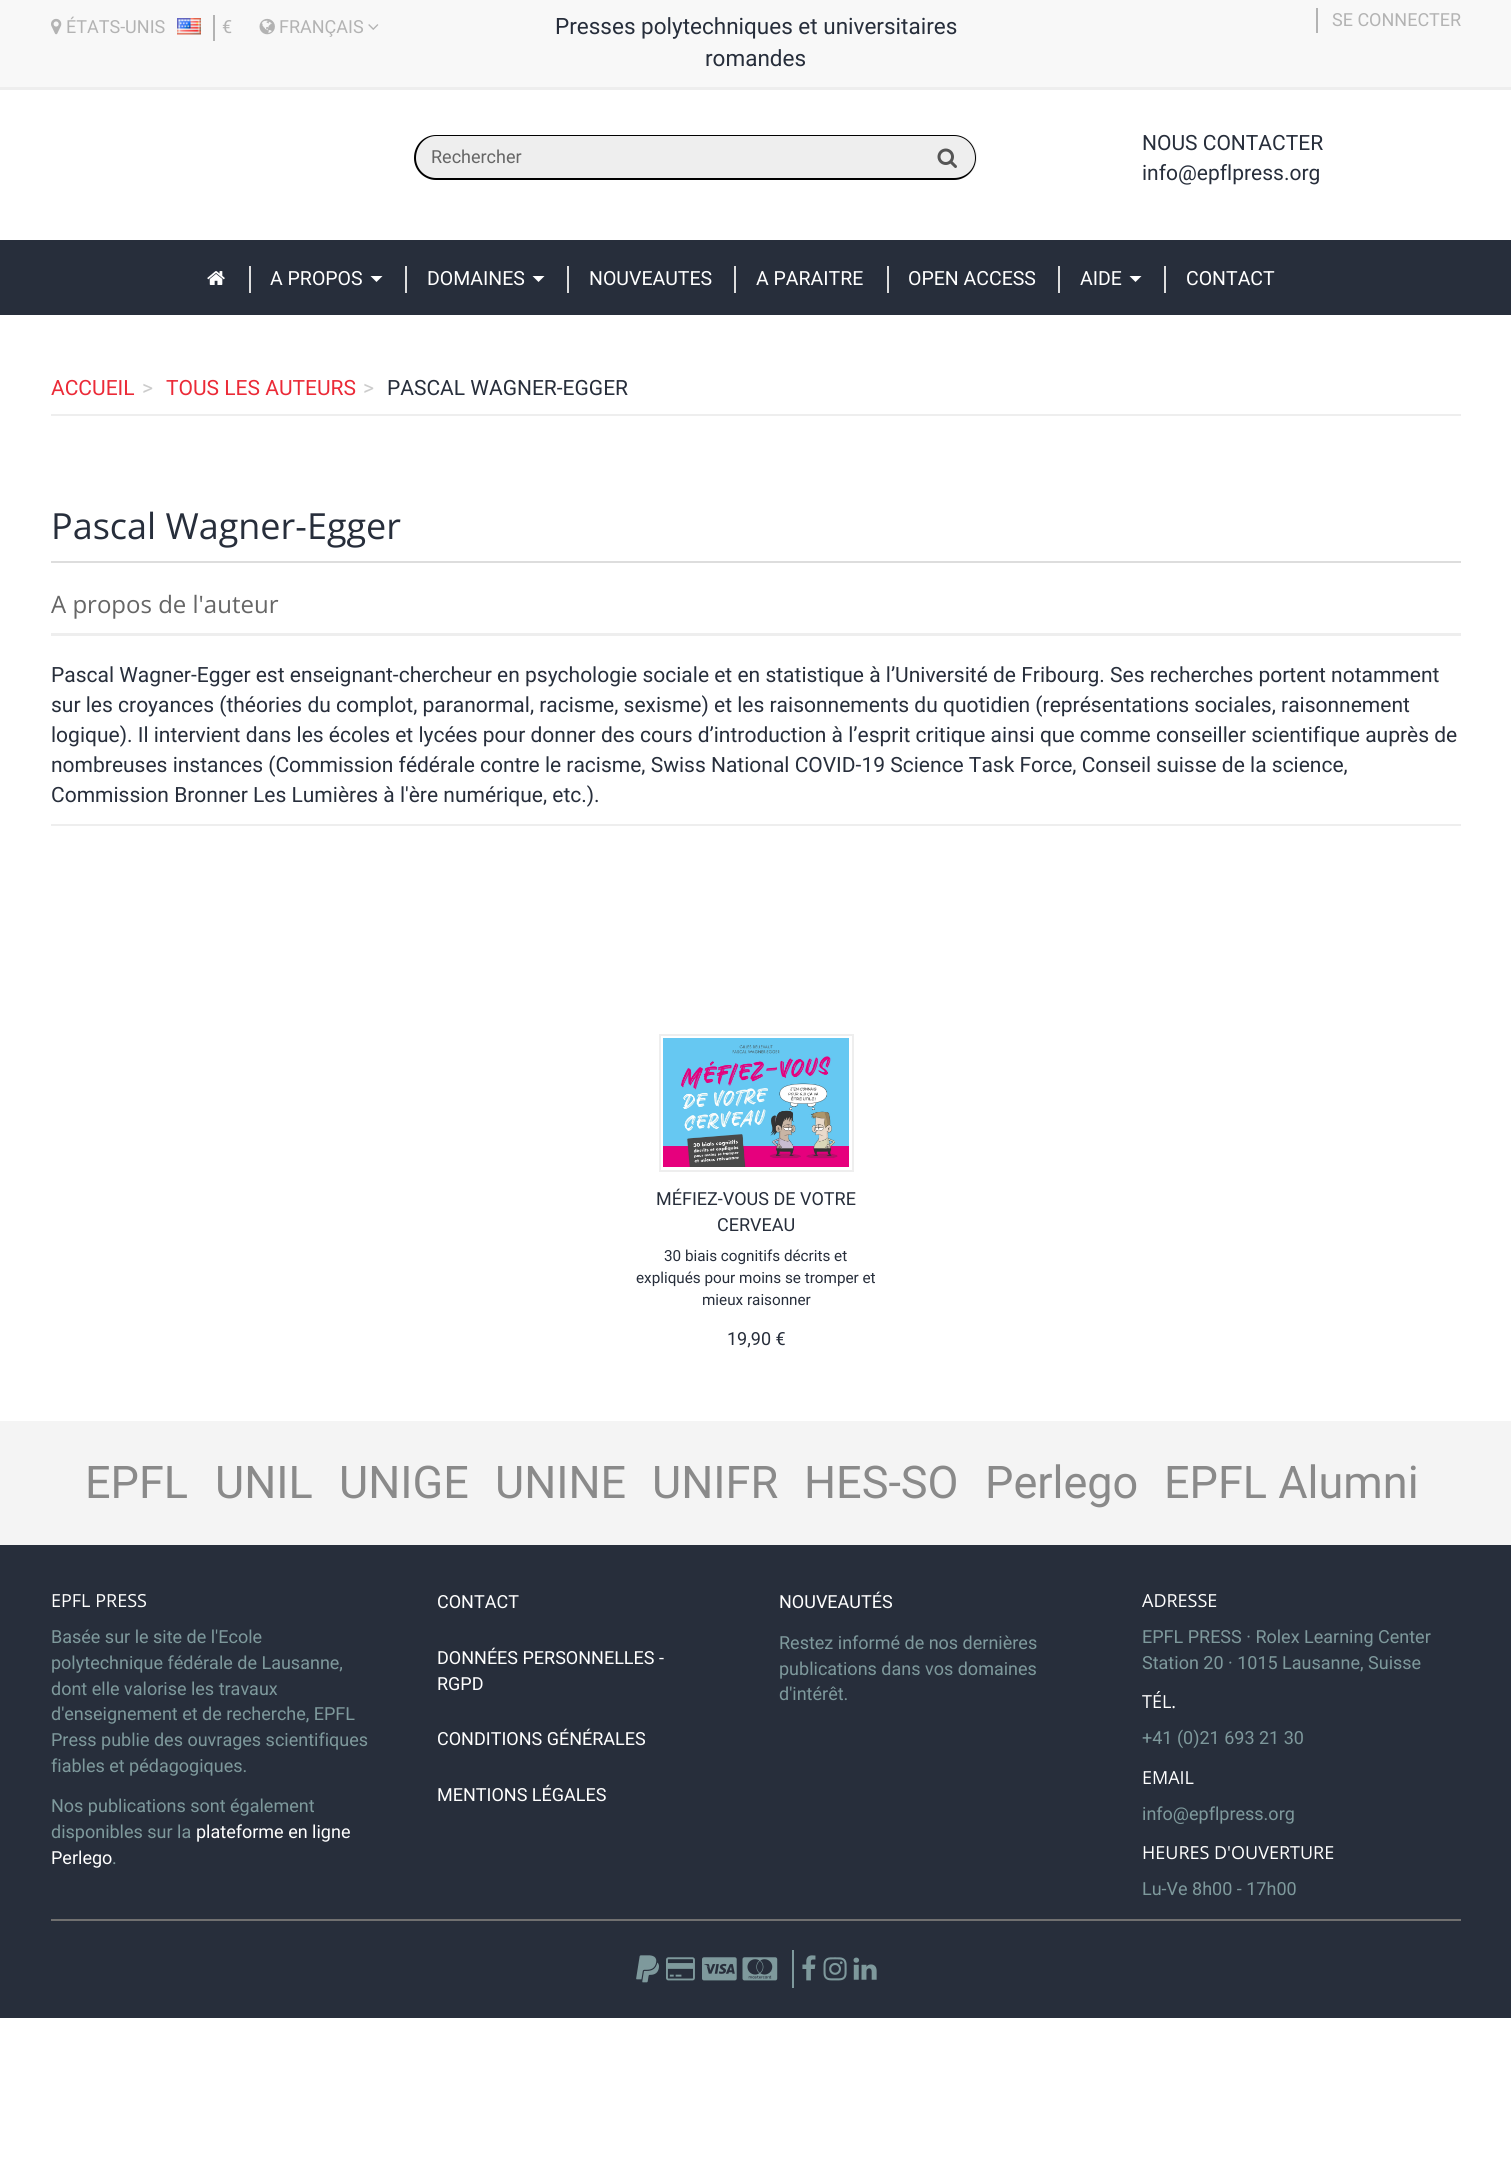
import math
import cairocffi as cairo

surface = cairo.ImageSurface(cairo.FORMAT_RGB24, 1511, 2165)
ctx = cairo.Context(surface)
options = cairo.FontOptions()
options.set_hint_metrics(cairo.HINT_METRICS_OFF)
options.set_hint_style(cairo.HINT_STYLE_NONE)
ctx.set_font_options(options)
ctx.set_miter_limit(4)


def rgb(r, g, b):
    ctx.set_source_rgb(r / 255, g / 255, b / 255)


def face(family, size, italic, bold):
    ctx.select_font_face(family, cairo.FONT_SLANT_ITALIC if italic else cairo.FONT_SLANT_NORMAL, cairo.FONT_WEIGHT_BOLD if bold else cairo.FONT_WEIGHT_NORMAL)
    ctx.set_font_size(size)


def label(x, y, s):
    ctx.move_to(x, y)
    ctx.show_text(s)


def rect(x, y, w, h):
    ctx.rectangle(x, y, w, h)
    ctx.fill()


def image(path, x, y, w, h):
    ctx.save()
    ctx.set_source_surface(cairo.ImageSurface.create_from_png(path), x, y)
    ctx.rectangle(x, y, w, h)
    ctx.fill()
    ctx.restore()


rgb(255, 255, 255)
ctx.paint()
rgb(248, 248, 248)
rect(0, 0, 1511, 87)
rgb(238, 238, 238)
rect(0, 87, 1511, 3)
image('image0.png', 51, 18, 11, 17)
face('Roboto', 18, 0, 0)
rgb(179, 179, 179)
label(66, 33, 'ÉTATS-UNIS')
image('image1.png', 177, 18, 24, 17)
rect(213, 15, 2, 26)
label(222, 33, '€')
image('image2.png', 259, 18, 16, 17)
label(279, 33, 'FRANÇAIS')
image('image3.png', 368, 24, 11, 6)
face('Roboto', 22.5, 0, 0)
rgb(39, 46, 59)
label(555, 34, 'Presses polytechniques et universitaires')
label(705, 66, 'romandes')
rgb(179, 179, 179)
rect(1316, 8, 2, 25)
face('Roboto', 18, 0, 0)
label(1332, 26, 'SE CONNECTER')
rgb(238, 238, 238)
ctx.new_path()
ctx.move_to(436.5, 135)
ctx.line_to(920, 135)
ctx.line_to(920, 180)
ctx.line_to(436.5, 180)
ctx.curve_to(424, 180, 414, 170, 414, 157.5)
ctx.curve_to(414, 145, 424, 135, 436.5, 135)
ctx.close_path()
ctx.fill()
rgb(0, 0, 0)
ctx.set_fill_rule(cairo.FILL_RULE_EVEN_ODD)
ctx.new_path()
ctx.move_to(436, 135)
ctx.line_to(920, 135)
ctx.line_to(920, 180)
ctx.line_to(436, 180)
ctx.curve_to(424, 180, 414, 170, 414, 158)
ctx.curve_to(414, 145, 424, 135, 436, 135)
ctx.close_path()
ctx.move_to(436, 136)
ctx.line_to(920, 136)
ctx.line_to(920, 178)
ctx.line_to(436, 178)
ctx.curve_to(425, 178, 416, 169, 416, 158)
ctx.curve_to(416, 146, 425, 136, 436, 136)
ctx.close_path()
ctx.fill()
rgb(102, 102, 102)
label(431, 163, 'Rechercher')
rgb(238, 238, 238)
ctx.new_path()
ctx.move_to(920, 135)
ctx.line_to(954.5, 135)
ctx.curve_to(967, 135, 977, 145, 977, 157.5)
ctx.curve_to(977, 170, 967, 180, 954.5, 180)
ctx.line_to(920, 180)
ctx.close_path()
ctx.fill()
rgb(0, 0, 0)
ctx.new_path()
ctx.move_to(920, 135)
ctx.line_to(954, 135)
ctx.curve_to(966, 135, 976, 145, 976, 158)
ctx.curve_to(976, 170, 966, 180, 954, 180)
ctx.line_to(920, 180)
ctx.close_path()
ctx.move_to(920, 136)
ctx.line_to(954, 136)
ctx.curve_to(966, 136, 975, 146, 975, 158)
ctx.curve_to(975, 169, 966, 178, 954, 178)
ctx.line_to(920, 178)
ctx.close_path()
ctx.fill()
image('image4.png', 937, 148, 20, 20)
face('Roboto', 21, 0, 0)
rgb(39, 46, 59)
label(1142, 150, 'NOUS CONTACTER')
label(1142, 180, 'info@epflpress.org')
rect(0, 240, 1511, 75)
rgb(221, 221, 221)
rect(249, 266, 2, 27)
image('image5.png', 207, 271, 18, 14)
rect(405, 266, 2, 27)
face('Roboto', 19.5, 0, 0)
rgb(255, 255, 255)
label(270, 285, 'A PROPOS')
ctx.set_fill_rule(cairo.FILL_RULE_WINDING)
ctx.new_path()
ctx.move_to(370.5, 276)
ctx.line_to(382.5, 276)
ctx.line_to(376.5, 282)
ctx.close_path()
ctx.fill()
rgb(221, 221, 221)
rect(567, 266, 2, 27)
rgb(255, 255, 255)
label(427, 285, 'DOMAINES')
ctx.new_path()
ctx.move_to(532.5, 276)
ctx.line_to(544.5, 276)
ctx.line_to(538.5, 282)
ctx.close_path()
ctx.fill()
rgb(221, 221, 221)
rect(734, 266, 2, 27)
rgb(255, 255, 255)
label(589, 285, 'NOUVEAUTES')
rgb(221, 221, 221)
rect(887, 266, 2, 27)
rgb(255, 255, 255)
label(756, 285, 'A PARAITRE')
rgb(221, 221, 221)
rect(1058, 266, 2, 27)
rgb(255, 255, 255)
label(908, 285, 'OPEN ACCESS')
rgb(221, 221, 221)
rect(1164, 266, 2, 27)
rgb(255, 255, 255)
label(1080, 285, 'AIDE')
ctx.new_path()
ctx.move_to(1129.5, 276)
ctx.line_to(1141.5, 276)
ctx.line_to(1135.5, 282)
ctx.close_path()
ctx.fill()
label(1186, 285, 'CONTACT')
rgb(238, 238, 238)
rect(51, 414, 1410, 2)
face('Roboto', 21, 0, 0)
rgb(235, 42, 55)
label(51, 395, 'ACCUEIL')
rgb(204, 204, 204)
label(142, 395, '>')
rgb(235, 42, 55)
label(166, 395, 'TOUS LES AUTEURS')
rgb(204, 204, 204)
label(363, 395, '>')
rgb(39, 46, 59)
label(387, 395, 'PASCAL WAGNER-EGGER')
face('Open Sans', 36, 0, 0)
label(51, 539, 'Pascal Wagner-Egger')
rgb(221, 221, 221)
rect(51, 561, 1410, 2)
rgb(238, 238, 238)
rect(51, 633, 1410, 3)
face('Open Sans', 24, 0, 0)
rgb(102, 102, 102)
label(51, 613, 'A propos de l\'auteur')
face('Roboto', 21, 0, 0)
rgb(39, 46, 59)
label(51, 682, 'Pascal Wagner-Egger est enseignant-chercheur en psychologie sociale et en statistique à l’Université de Fribourg. Ses recherches portent notamment')
label(51, 712, 'sur les croyances (théories du complot, paranormal, racisme, sexisme) et les raisonnements du quotidien (représentations sociales, raisonnement')
label(51, 742, 'logique). Il intervient dans les écoles et lycées pour donner des cours d’introduction à l’esprit critique ainsi que comme conseiller scientifique auprès de')
label(51, 772, 'nombreuses instances (Commission fédérale contre le racisme, Swiss National COVID-19 Science Task Force, Conseil suisse de la science,')
label(51, 802, 'Commission Bronner Les Lumières à l\'ère numérique, etc.).')
rgb(238, 238, 238)
rect(51, 824, 1410, 2)
ctx.rectangle(660, 1035, 193, 136)
ctx.stroke()
image('image6.png', 663, 1038, 186, 129)
face('Roboto', 18, 0, 0)
rgb(39, 46, 59)
label(656, 1205, 'MÉFIEZ-VOUS DE VOTRE')
label(717, 1231, 'CERVEAU')
face('Roboto', 15.25, 0, 0)
label(664, 1261, '30 biais cognitifs décrits et')
label(636, 1283, 'expliqués pour moins se tromper et')
label(702, 1305, 'mieux raisonner')
face('Roboto', 18, 0, 0)
label(727, 1345, '19,90 €')
rgb(244, 244, 244)
rect(0, 1421, 1511, 124)
face('Roboto', 45, 0, 0)
rgb(138, 138, 138)
label(85, 1498, 'EPFL')
label(215, 1498, 'UNIL')
label(339, 1498, 'UNIGE')
label(495, 1498, 'UNINE')
label(652, 1498, 'UNIFR')
label(804, 1498, 'HES-SO')
label(985, 1498, 'Perlego')
label(1164, 1498, 'EPFL Alumni')
rgb(39, 46, 59)
rect(0, 1545, 1511, 473)
face('Open Sans', 18, 0, 0)
rgb(255, 255, 255)
label(51, 1607, 'EPFL PRESS')
face('Roboto', 18, 0, 0)
rgb(126, 153, 156)
label(51, 1643, 'Basée sur le site de l\'Ecole')
label(51, 1669, 'polytechnique fédérale de Lausanne,')
label(51, 1695, 'dont elle valorise les travaux')
label(51, 1720, 'd\'enseignement et de recherche, EPFL')
label(51, 1746, 'Press publie des ouvrages scientifiques')
label(51, 1772, 'fiables et pédagogiques.')
label(51, 1812, 'Nos publications sont également')
label(51, 1838, 'disponibles sur la')
rgb(255, 255, 255)
label(196, 1838, 'plateforme en ligne')
label(51, 1864, 'Perlego')
rgb(126, 153, 156)
label(112, 1864, '.')
rgb(255, 255, 255)
label(437, 1608, 'CONTACT')
label(437, 1664, 'DONNÉES PERSONNELLES -')
label(437, 1690, 'RGPD')
label(437, 1745, 'CONDITIONS GÉNÉRALES')
label(437, 1801, 'MENTIONS LÉGALES')
label(779, 1608, 'NOUVEAUTÉS')
rgb(126, 153, 156)
label(779, 1649, 'Restez informé de nos dernières')
label(779, 1675, 'publications dans vos domaines')
label(779, 1700, 'd\'intérêt.')
face('Open Sans', 18, 0, 0)
rgb(255, 255, 255)
label(1142, 1607, 'ADRESSE')
face('Roboto', 18, 0, 0)
rgb(126, 153, 156)
label(1142, 1643, 'EPFL PRESS · Rolex Learning Center')
label(1142, 1669, 'Station 20 · 1015 Lausanne, Suisse')
face('Open Sans', 18, 0, 0)
rgb(255, 255, 255)
label(1142, 1708, 'TÉL.')
face('Roboto', 18, 0, 0)
rgb(126, 153, 156)
label(1142, 1744, '+41 (0)21 693 21 30')
face('Open Sans', 18, 0, 0)
rgb(255, 255, 255)
label(1142, 1784, 'EMAIL')
face('Roboto', 18, 0, 0)
rgb(126, 153, 156)
label(1142, 1820, 'info@epflpress.org')
face('Open Sans', 18, 0, 0)
rgb(255, 255, 255)
label(1142, 1859, 'HEURES D\'OUVERTURE')
face('Roboto', 18, 0, 0)
rgb(126, 153, 156)
label(1142, 1895, 'Lu-Ve 8h00 - 17h00')
rgb(112, 112, 112)
rect(51, 1919, 1410, 2)
image('image7.png', 636, 1955, 23, 28)
image('image8.png', 666, 1957, 29, 24)
image('image9.png', 702, 1957, 35, 24)
image('image10.png', 742, 1957, 36, 24)
rgb(126, 153, 156)
rect(792, 1950, 2, 38)
image('image11.png', 802, 1955, 14, 26)
image('image12.png', 823, 1957, 24, 24)
image('image13.png', 853, 1957, 24, 23)
surface.write_to_png('render.png')
